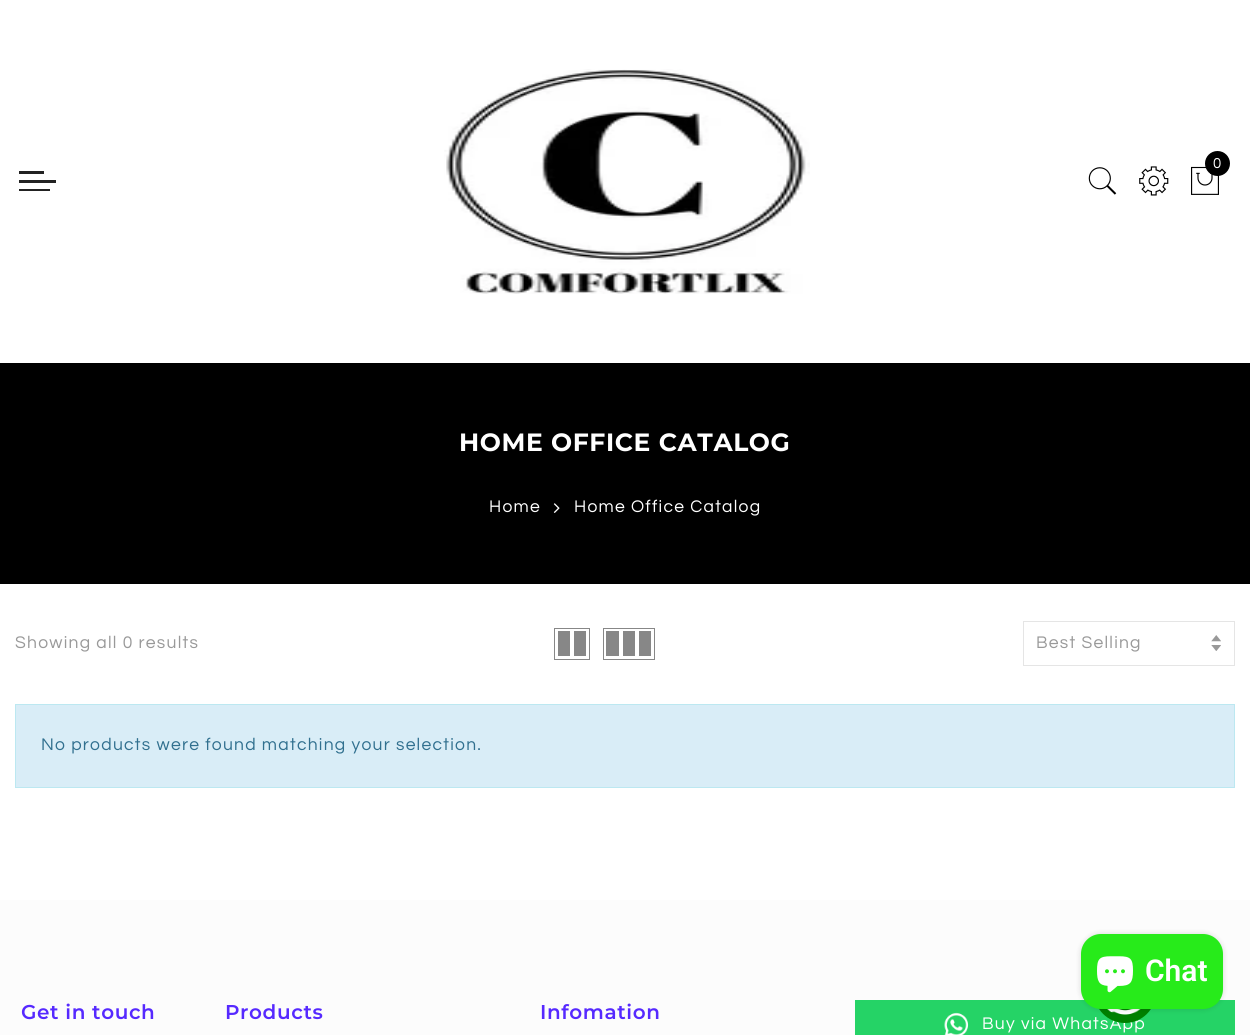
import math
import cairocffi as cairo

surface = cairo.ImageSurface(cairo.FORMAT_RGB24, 1250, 1035)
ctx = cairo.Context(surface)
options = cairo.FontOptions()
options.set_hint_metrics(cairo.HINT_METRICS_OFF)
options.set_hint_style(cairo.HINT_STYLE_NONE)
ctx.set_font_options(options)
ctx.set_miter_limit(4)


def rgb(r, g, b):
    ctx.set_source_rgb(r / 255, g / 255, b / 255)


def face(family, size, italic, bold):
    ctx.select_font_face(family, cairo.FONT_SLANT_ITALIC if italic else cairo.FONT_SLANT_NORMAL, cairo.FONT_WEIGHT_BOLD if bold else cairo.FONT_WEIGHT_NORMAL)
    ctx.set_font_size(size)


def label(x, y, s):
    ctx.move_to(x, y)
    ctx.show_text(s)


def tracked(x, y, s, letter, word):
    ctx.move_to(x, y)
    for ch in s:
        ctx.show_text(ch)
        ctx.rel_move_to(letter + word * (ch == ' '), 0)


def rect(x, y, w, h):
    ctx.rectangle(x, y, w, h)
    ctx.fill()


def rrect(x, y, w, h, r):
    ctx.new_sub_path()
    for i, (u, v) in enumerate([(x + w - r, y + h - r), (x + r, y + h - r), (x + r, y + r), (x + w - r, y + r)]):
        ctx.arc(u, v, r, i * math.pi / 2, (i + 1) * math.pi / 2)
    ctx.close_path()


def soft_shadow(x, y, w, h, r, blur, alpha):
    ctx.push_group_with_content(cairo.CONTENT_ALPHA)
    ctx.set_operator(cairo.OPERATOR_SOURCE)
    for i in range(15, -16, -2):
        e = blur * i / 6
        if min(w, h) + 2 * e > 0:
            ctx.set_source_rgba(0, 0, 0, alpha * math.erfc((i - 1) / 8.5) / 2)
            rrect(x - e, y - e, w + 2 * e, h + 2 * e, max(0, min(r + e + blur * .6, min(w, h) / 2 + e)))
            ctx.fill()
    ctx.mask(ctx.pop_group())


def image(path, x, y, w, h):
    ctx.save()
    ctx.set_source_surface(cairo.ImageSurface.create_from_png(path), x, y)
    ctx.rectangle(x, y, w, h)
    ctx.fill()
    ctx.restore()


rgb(255, 255, 255)
ctx.paint()
image('image0.png', 444, 69, 366, 225)
image('image1.png', 1191, 166, 28, 29)
rgb(0, 0, 0)
ctx.arc(1217.5, 163.5, 12.5, 0, 2 * math.pi)
ctx.fill()
face('Questrial', 15, 0, 0)
rgb(255, 255, 255)
tracked(1213, 168, '0', 1.25, 0)
image('image2.png', 1088, 167, 29, 28)
image('image3.png', 1139, 166, 30, 30)
rgb(34, 34, 34)
rect(19, 171, 25, 3)
rect(19, 180, 37, 3)
rect(19, 189, 31, 2)
rgb(0, 0, 0)
rect(0, 363, 1250, 221)
face('Montserrat', 25, 0, 1)
rgb(255, 255, 255)
tracked(459, 451, 'HOME OFFICE CATALOG', 0.6, 0)
face('Questrial', 17.5, 0, 0)
tracked(489, 512, 'Home', 1.25, 0)
image('image4.png', 553, 503, 7, 10)
tracked(574, 512, 'Home Office Catalog', 1.25, 0)
rgb(153, 153, 153)
tracked(15, 648, 'Showing all 0 results', 1.25, 0)
ctx.rectangle(554.5, 628.5, 35, 31)
rgb(135, 135, 135)
ctx.set_line_width(1)
ctx.stroke()
rect(574, 631, 12, 25)
rect(558, 631, 12, 25)
ctx.rectangle(603.5, 628.5, 51, 31)
ctx.stroke()
rect(639, 631, 12, 25)
rect(623, 631, 12, 25)
rect(606, 631, 13, 25)
image('image5.png', 1211, 635, 10, 16)
ctx.rectangle(1023.5, 621.5, 211, 44)
rgb(229, 229, 229)
ctx.stroke()
rgb(153, 153, 153)
tracked(1036, 648, 'Best Selling', 1.25, 0)
rgb(217, 237, 247)
ctx.rectangle(15.5, 704.5, 1219, 83)
ctx.fill_preserve()
rgb(188, 232, 241)
ctx.stroke()
rgb(49, 112, 143)
tracked(41, 750, 'No products were found matching your selection.', 1.25, 0)
rgb(252, 252, 252)
rect(0, 900, 1250, 135)
face('Montserrat SemiBold', 20, 0, 0)
rgb(86, 41, 255)
tracked(21, 1019, 'Get in touch', 0.6, 0)
tracked(225, 1019, 'Products', 0.6, 0)
tracked(540, 1019, 'Infomation', 0.6, 0)
rgb(37, 211, 102)
rect(855, 1000, 380, 35)
image('image6.png', 944, 1012, 25, 23)
face('Questrial', 17.5, 0, 0)
rgb(255, 255, 255)
tracked(982, 1029, 'Buy via WhatsApp', 1.25, 0)
rgb(0, 128, 0)
rrect(1094, 960, 62, 63, 31)
ctx.fill()
image('image7.png', 1107, 1009, 34, 6)
rgb(0, 0, 0)
soft_shadow(1081, 934, 142, 75, 20, 3, 0.15)
rgb(39, 235, 26)
rrect(1081, 934, 142, 75, 20)
ctx.fill()
image('image8.png', 1097, 956, 36, 37)
face('Roboto SemiBold', 30, 0, 0)
rgb(255, 255, 255)
label(1145, 981, 'Chat')
surface.write_to_png('render.png')
